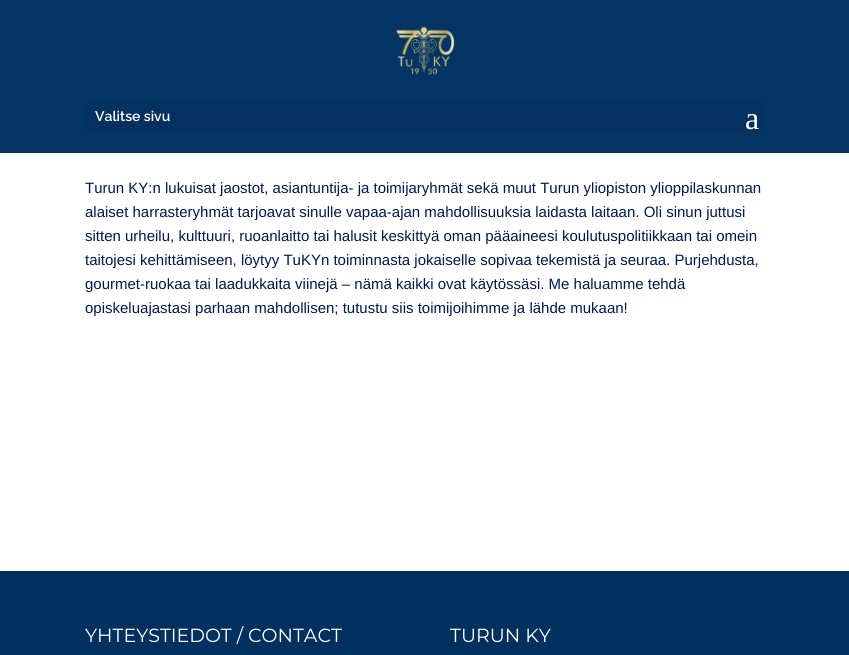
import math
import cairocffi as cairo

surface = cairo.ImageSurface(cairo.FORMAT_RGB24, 849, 655)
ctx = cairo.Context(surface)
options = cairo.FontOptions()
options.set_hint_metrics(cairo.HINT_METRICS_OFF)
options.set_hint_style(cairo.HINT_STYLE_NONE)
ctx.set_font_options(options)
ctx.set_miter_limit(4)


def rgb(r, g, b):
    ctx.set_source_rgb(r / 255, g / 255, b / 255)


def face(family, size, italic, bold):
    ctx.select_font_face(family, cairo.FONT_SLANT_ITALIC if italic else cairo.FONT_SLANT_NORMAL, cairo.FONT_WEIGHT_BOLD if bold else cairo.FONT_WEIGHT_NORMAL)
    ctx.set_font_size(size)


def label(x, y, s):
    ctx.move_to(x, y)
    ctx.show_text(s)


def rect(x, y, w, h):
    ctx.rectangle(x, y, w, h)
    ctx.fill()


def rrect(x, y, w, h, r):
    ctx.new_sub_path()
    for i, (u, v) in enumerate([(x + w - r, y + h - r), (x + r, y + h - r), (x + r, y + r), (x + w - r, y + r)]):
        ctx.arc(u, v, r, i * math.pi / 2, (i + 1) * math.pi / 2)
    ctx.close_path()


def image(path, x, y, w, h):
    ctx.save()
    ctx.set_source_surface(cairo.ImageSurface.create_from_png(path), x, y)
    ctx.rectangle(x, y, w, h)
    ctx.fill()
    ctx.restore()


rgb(255, 255, 255)
ctx.paint()
rgb(4, 52, 100)
rect(0, 0, 849, 153)
image('image0.png', 396, 26, 59, 49)
rgb(4, 49, 95)
rrect(85, 100, 679, 33, 5)
ctx.fill()
face('Raleway SemiBold', 14, 0, 0)
rgb(255, 255, 255)
label(95, 121, 'Valitse sivu')
face('Liberation Serif', 32, 0, 0)
label(745, 129, 'a')
face('Liberation Sans', 15, 0, 0)
rgb(0, 25, 73)
label(85, 193, 'Turun KY:n lukuisat jaostot, asiantuntija- ja toimijaryhmät sekä muut Turun yliopiston ylioppilaskunnan')
label(85, 217, 'alaiset harrasteryhmät tarjoavat sinulle vapaa-ajan mahdollisuuksia laidasta laitaan. Oli sinun juttusi')
label(85, 241, 'sitten urheilu, kulttuuri, ruoanlaitto tai halusit keskittyä oman pääaineesi koulutuspolitiikkaan tai omein')
label(85, 265, 'taitojesi kehittämiseen, löytyy TuKYn toiminnasta jokaiselle sopivaa tekemistä ja seuraa. Purjehdusta,')
label(85, 289, 'gourmet-ruokaa tai laadukkaita viinejä – nämä kaikki ovat käytössäsi. Me haluamme tehdä')
label(85, 313, 'opiskeluajastasi parhaan mahdollisen; tutustu siis toimijoihimme ja lähde mukaan!')
rgb(0, 48, 93)
rect(0, 571, 849, 84)
face('Montserrat', 19, 0, 0)
rgb(255, 255, 255)
label(85, 642, 'YHTEYSTIEDOT / CONTACT')
label(450, 642, 'TURUN KY')
surface.write_to_png('render.png')
